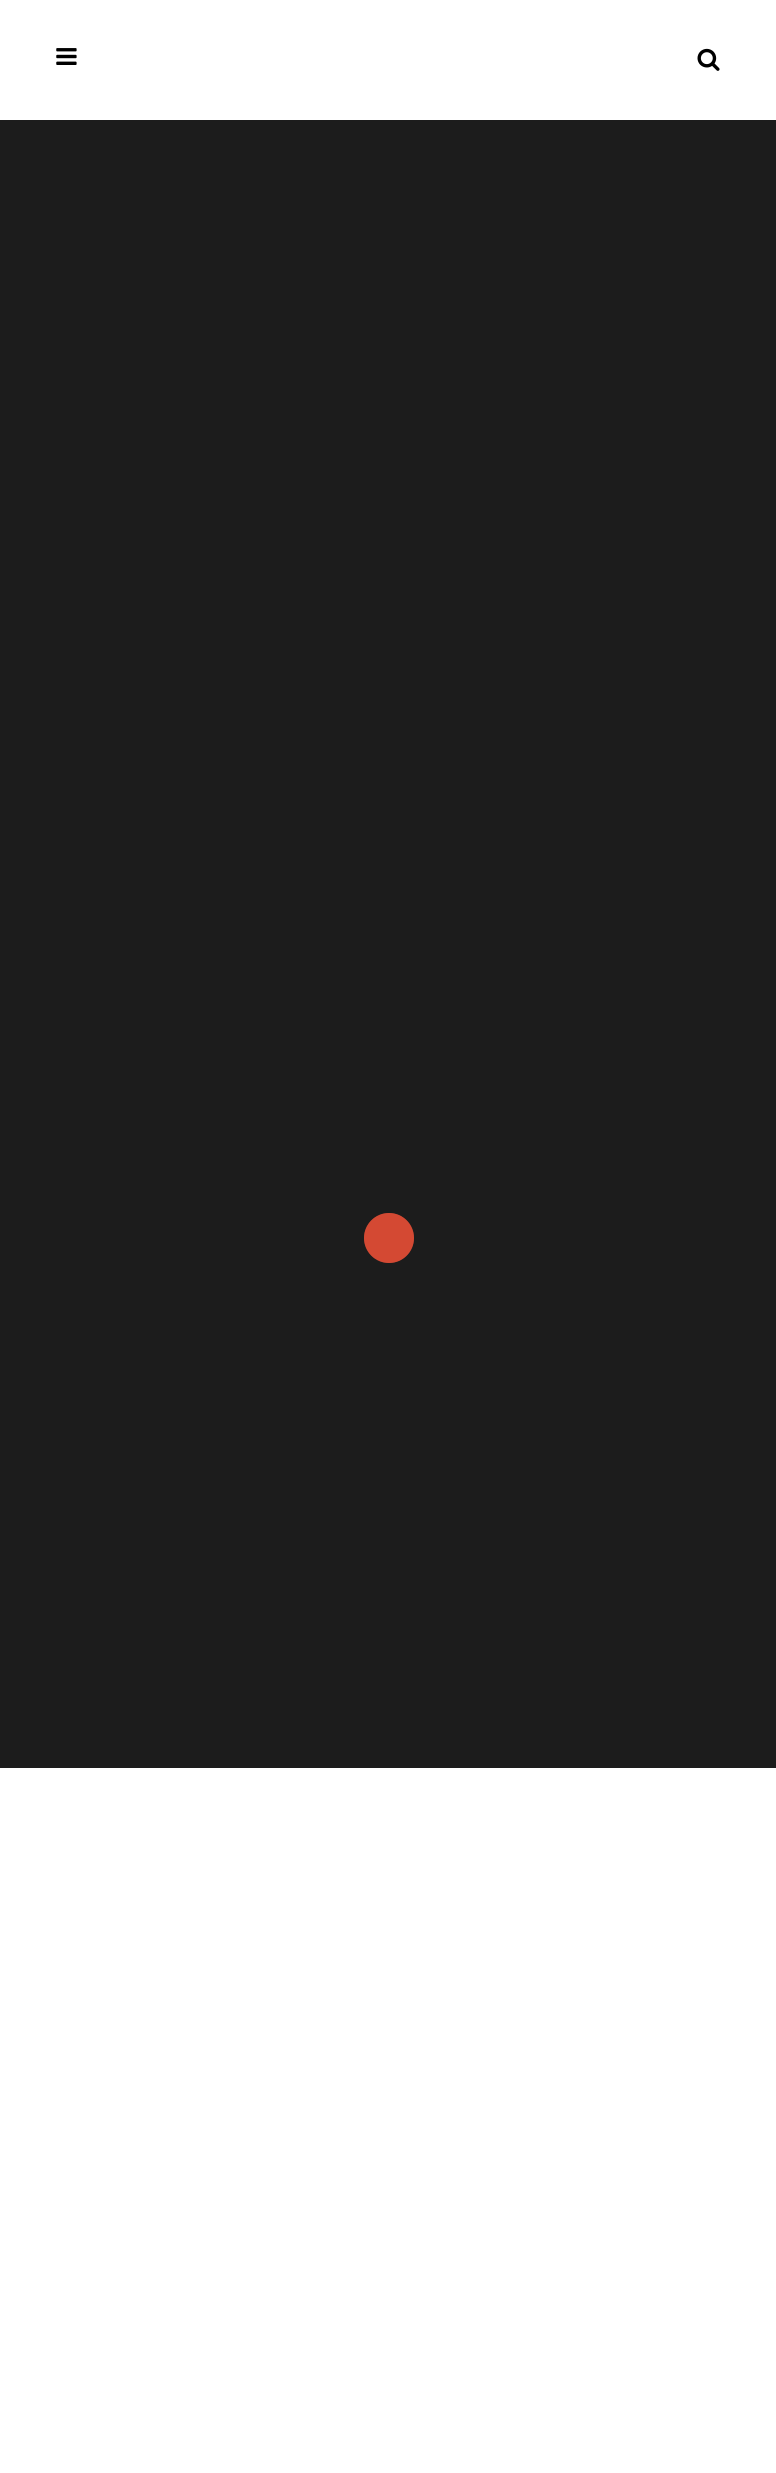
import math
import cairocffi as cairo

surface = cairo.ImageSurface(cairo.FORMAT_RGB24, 776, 2473)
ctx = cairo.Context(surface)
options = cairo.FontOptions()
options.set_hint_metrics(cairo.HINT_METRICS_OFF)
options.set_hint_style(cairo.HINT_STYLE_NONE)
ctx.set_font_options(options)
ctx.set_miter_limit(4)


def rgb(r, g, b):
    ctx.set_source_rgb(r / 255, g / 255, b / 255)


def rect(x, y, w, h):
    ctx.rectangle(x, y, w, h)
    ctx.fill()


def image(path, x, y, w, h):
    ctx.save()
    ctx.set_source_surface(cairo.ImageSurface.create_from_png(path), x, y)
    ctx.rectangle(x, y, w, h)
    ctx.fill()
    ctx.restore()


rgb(255, 255, 255)
ctx.paint()
image('image0.png', 56, 48, 21, 17)
image('image1.png', 697, 48, 23, 23)
rgb(28, 28, 28)
rect(0, 120, 776, 1648)
rgb(159, 61, 45)
ctx.arc(389, 1238, 25, 0, 2 * math.pi)
ctx.fill()
ctx.set_source_rgba(0.969, 0.325, 0.22, 0.6)
ctx.arc(389, 1238, 25, 0, 2 * math.pi)
ctx.fill()
surface.write_to_png('render.png')
